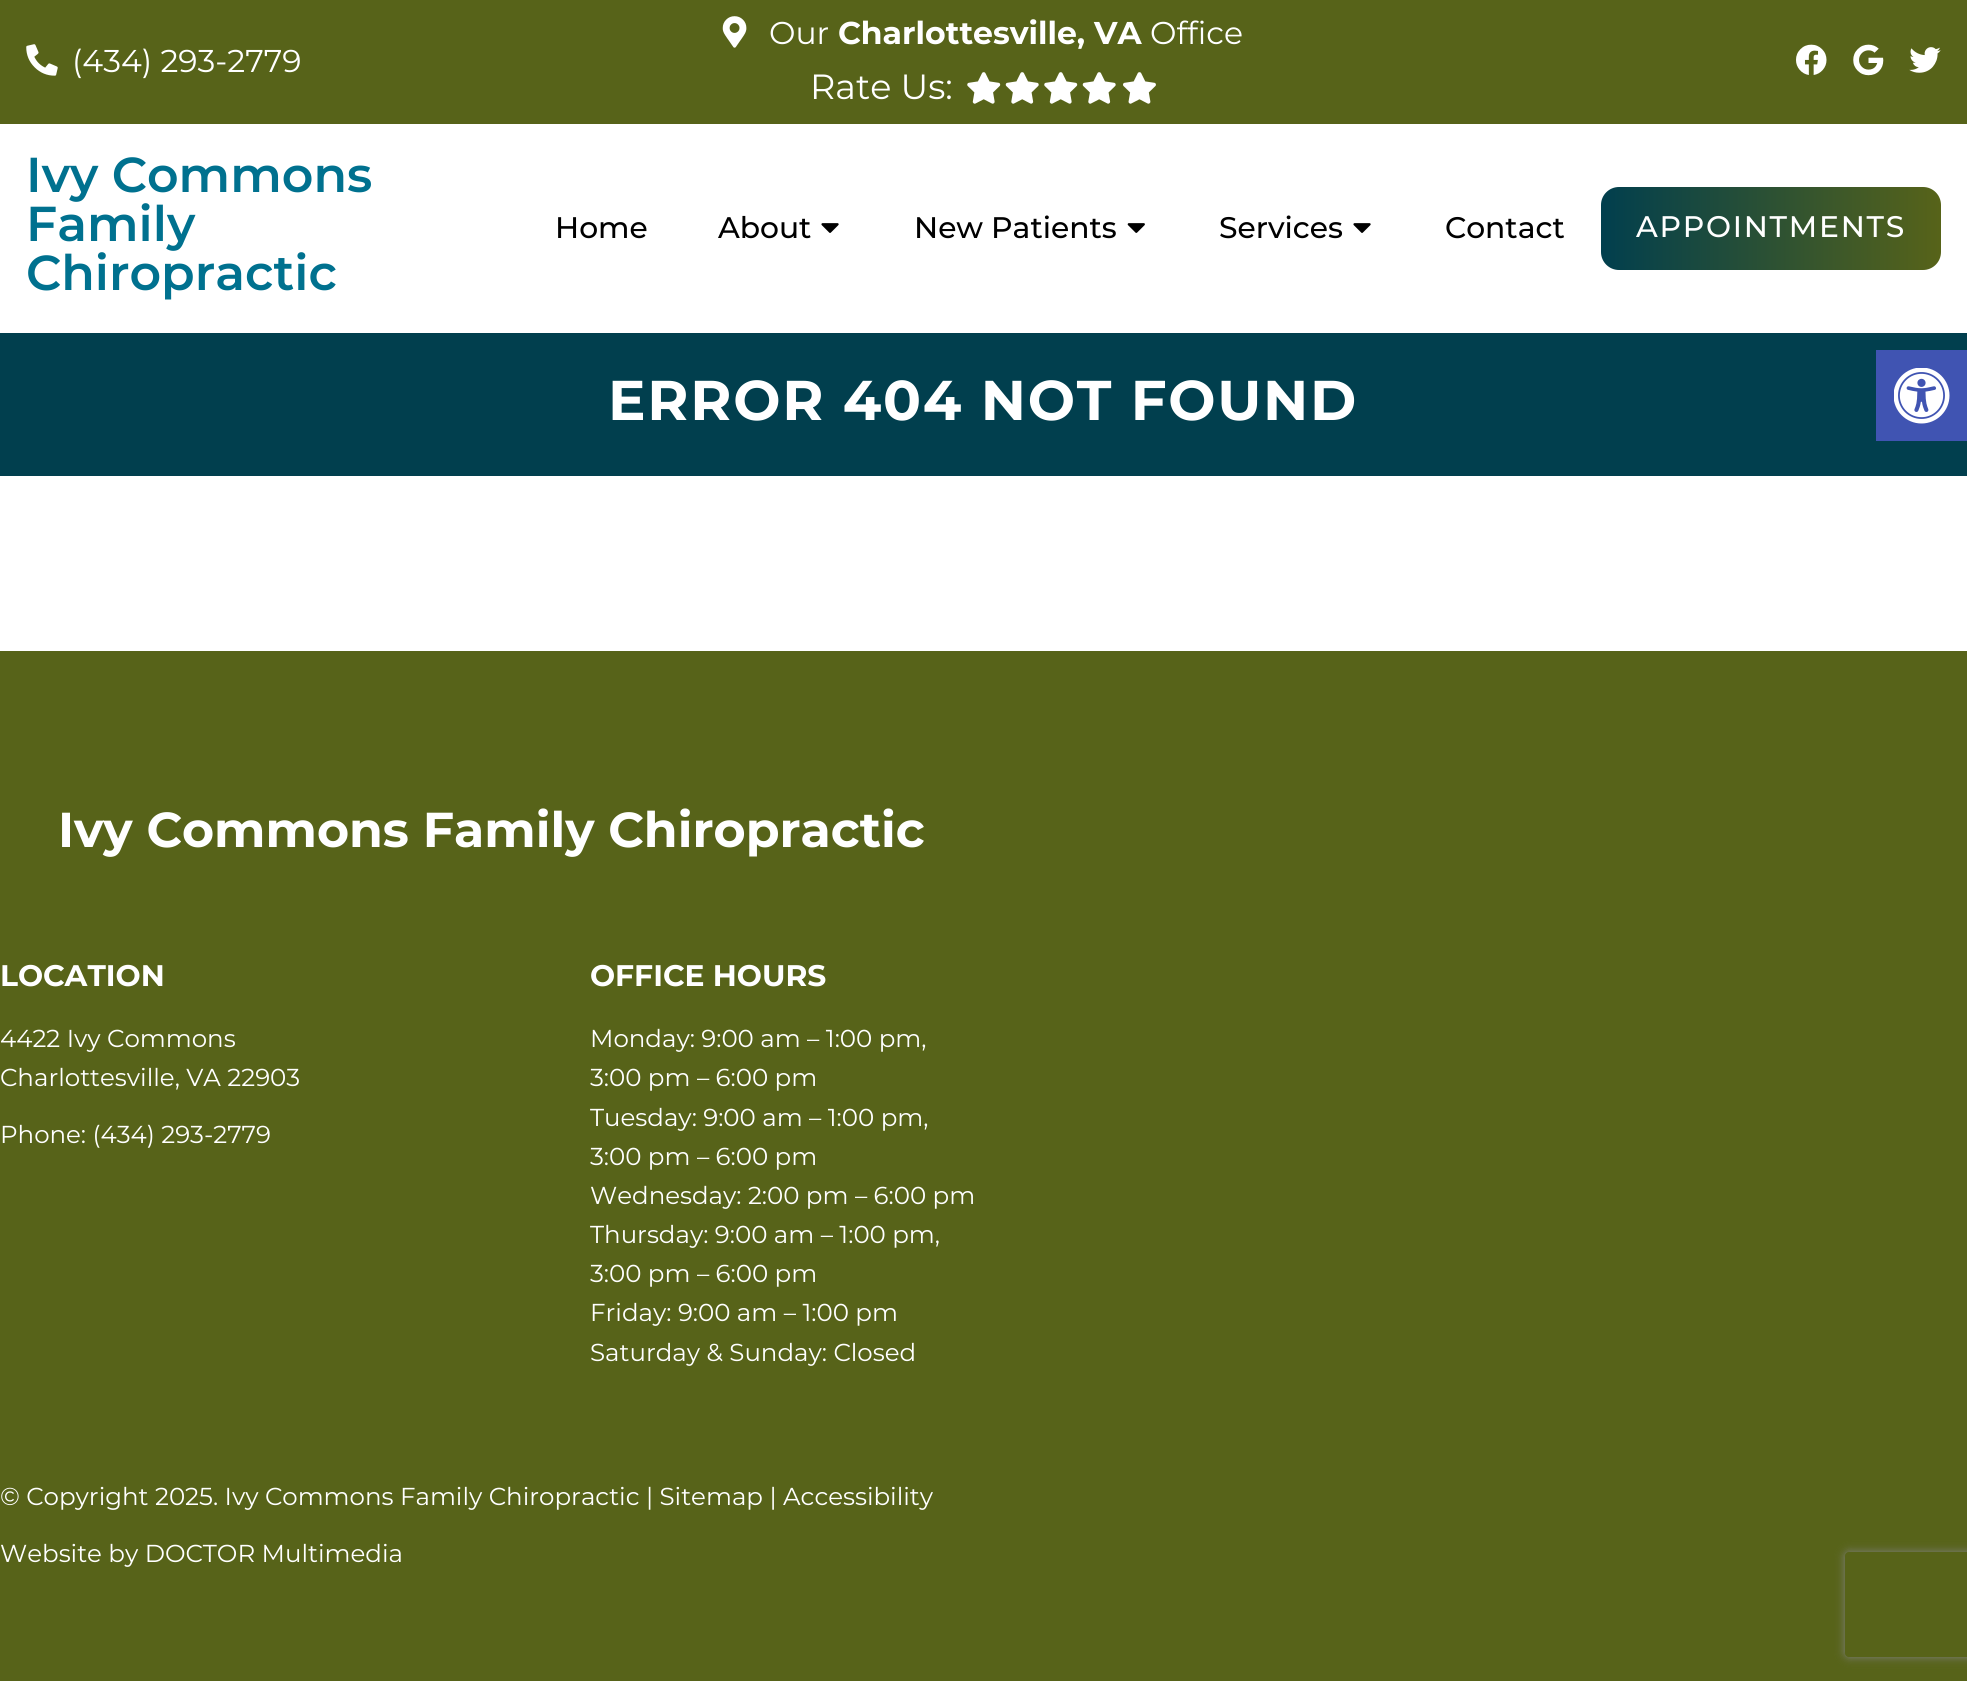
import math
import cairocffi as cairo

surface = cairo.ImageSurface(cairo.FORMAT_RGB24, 1967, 1681)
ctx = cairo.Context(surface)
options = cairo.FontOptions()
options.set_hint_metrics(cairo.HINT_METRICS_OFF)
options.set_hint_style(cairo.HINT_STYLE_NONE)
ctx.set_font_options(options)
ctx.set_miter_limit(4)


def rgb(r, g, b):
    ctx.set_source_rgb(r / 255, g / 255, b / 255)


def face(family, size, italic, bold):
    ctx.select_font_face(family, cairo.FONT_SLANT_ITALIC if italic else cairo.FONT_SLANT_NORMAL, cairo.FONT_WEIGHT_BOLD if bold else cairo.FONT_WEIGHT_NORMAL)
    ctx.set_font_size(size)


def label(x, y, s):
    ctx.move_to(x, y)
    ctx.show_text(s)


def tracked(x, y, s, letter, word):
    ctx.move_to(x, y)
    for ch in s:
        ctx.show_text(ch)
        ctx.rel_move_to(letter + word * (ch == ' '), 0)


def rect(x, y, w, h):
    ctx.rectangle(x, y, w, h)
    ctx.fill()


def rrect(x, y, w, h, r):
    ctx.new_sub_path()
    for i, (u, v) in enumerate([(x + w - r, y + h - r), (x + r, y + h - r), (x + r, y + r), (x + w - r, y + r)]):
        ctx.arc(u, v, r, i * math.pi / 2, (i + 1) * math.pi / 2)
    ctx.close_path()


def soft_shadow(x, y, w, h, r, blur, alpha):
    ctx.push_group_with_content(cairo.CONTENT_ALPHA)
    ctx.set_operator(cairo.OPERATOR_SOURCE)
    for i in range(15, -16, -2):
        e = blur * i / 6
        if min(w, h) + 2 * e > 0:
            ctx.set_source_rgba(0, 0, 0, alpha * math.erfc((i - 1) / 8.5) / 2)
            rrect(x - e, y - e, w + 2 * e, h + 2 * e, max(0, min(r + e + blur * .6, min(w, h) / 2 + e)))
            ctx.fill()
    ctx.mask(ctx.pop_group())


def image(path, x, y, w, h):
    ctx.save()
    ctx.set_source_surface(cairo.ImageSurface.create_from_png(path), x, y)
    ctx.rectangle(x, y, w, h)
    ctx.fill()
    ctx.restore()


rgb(255, 255, 255)
ctx.paint()
rgb(87, 99, 25)
rect(0, 0, 1967, 124)
image('image0.png', 26, 44, 32, 32)
face('Montserrat', 31.5, 0, 0)
rgb(255, 255, 255)
label(72, 72, '(434) 293-2779')
image('image1.png', 722, 16, 25, 32)
label(769, 44, 'Our')
face('Montserrat', 31.5, 0, 1)
label(838, 44, 'Charlottesville, VA')
face('Montserrat', 31.5, 0, 0)
label(1150, 44, 'Office')
face('Montserrat', 35, 0, 0)
label(810, 99, 'Rate Us:')
image('image2.png', 967, 72, 34, 32)
image('image3.png', 1005, 72, 34, 32)
image('image2.png', 1044, 72, 34, 32)
image('image3.png', 1082, 72, 34, 32)
image('image4.png', 1123, 72, 33, 32)
image('image5.png', 1796, 44, 31, 31)
image('image6.png', 1853, 44, 31, 32)
image('image7.png', 1909, 47, 32, 26)
face('Montserrat SemiBold', 49, 0, 0)
rgb(0, 113, 143)
label(26, 192, 'Ivy Commons')
label(26, 241, 'Family')
label(26, 290, 'Chiropractic')
face('Montserrat Medium', 29.75, 0, 0)
rgb(0, 0, 0)
label(555, 238, 'Home')
label(718, 238, 'About')
image('image8.png', 821, 223, 18, 10)
label(914, 238, 'New Patients')
image('image9.png', 1127, 223, 18, 10)
label(1219, 238, 'Services')
image('image8.png', 1353, 223, 18, 10)
label(1445, 238, 'Contact')
gradient = cairo.LinearGradient(1601, 228, 1941, 228)
gradient.add_color_stop_rgba(0, 0.004, 0.247, 0.306, 1)
gradient.add_color_stop_rgba(1, 0.341, 0.388, 0.098, 1)
ctx.set_source(gradient)
rrect(1601, 187, 340, 83, 18)
ctx.fill()
rgb(255, 255, 255)
tracked(1636, 237, 'APPOINTMENTS', 1.75, 0)
rgb(1, 63, 78)
rect(0, 333, 1967, 143)
face('Montserrat', 56, 0, 1)
rgb(255, 255, 255)
tracked(608, 420, 'ERROR 404 NOT FOUND', 1.75, 0)
rgb(87, 99, 25)
rect(0, 651, 1967, 1030)
face('Montserrat', 49, 0, 1)
rgb(255, 255, 255)
label(58, 847, 'Ivy Commons Family Chiropractic')
face('Montserrat', 29.75, 0, 1)
label(0, 986, 'LOCATION')
face('Montserrat', 24.5, 0, 0)
label(0, 1047, '4422 Ivy Commons')
label(0, 1086, 'Charlottesville, VA 22903')
label(0, 1143, 'Phone: (434) 293-2779')
face('Montserrat', 29.75, 0, 1)
label(590, 986, 'OFFICE HOURS')
face('Montserrat', 24.5, 0, 0)
label(590, 1047, 'Monday: 9:00 am – 1:00 pm,')
label(590, 1086, '3:00 pm – 6:00 pm')
label(590, 1126, 'Tuesday: 9:00 am – 1:00 pm,')
label(590, 1165, '3:00 pm – 6:00 pm')
label(590, 1204, 'Wednesday: 2:00 pm – 6:00 pm')
label(590, 1243, 'Thursday: 9:00 am – 1:00 pm,')
label(590, 1282, '3:00 pm – 6:00 pm')
label(590, 1321, 'Friday: 9:00 am – 1:00 pm')
label(590, 1361, 'Saturday & Sunday: Closed')
label(0, 1505, '© Copyright 2025. Ivy Commons Family Chiropractic | Sitemap | Accessibility')
label(0, 1562, 'Website by DOCTOR Multimedia')
rgb(64, 84, 178)
rect(1876, 350, 91, 91)
image('image10.png', 1894, 368, 56, 56)
ctx.save()
ctx.set_fill_rule(cairo.FILL_RULE_EVEN_ODD)
ctx.new_path()
ctx.move_to(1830, 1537)
ctx.line_to(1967, 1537)
ctx.line_to(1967, 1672)
ctx.line_to(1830, 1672)
ctx.close_path()
ctx.move_to(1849, 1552)
ctx.line_to(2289, 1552)
ctx.curve_to(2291, 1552, 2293, 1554, 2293, 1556)
ctx.line_to(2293, 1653)
ctx.curve_to(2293, 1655, 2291, 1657, 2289, 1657)
ctx.line_to(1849, 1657)
ctx.curve_to(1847, 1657, 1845, 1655, 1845, 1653)
ctx.line_to(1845, 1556)
ctx.curve_to(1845, 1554, 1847, 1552, 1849, 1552)
ctx.close_path()
ctx.clip()
rgb(128, 128, 128)
soft_shadow(1845, 1552, 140, 105, 4, 4.5, 1)
ctx.restore()
surface.write_to_png('render.png')
